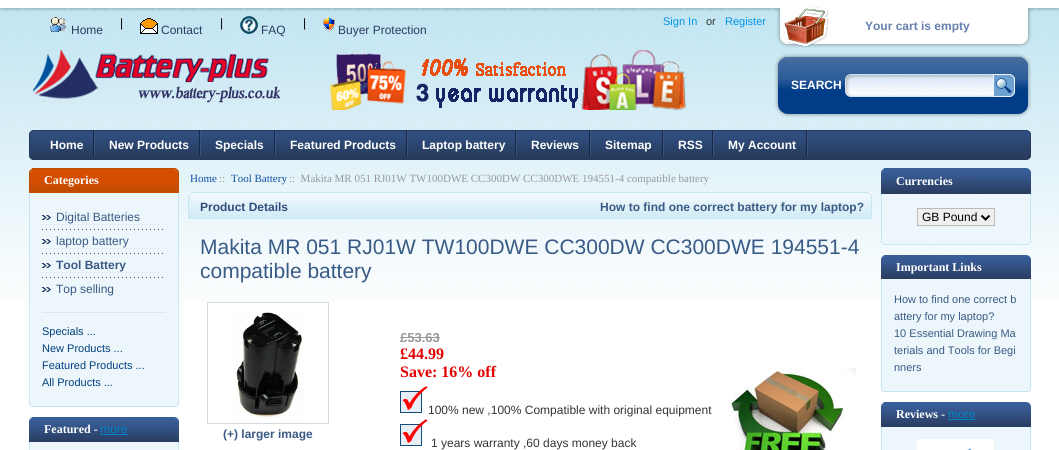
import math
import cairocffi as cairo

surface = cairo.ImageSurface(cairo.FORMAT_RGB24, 1059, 450)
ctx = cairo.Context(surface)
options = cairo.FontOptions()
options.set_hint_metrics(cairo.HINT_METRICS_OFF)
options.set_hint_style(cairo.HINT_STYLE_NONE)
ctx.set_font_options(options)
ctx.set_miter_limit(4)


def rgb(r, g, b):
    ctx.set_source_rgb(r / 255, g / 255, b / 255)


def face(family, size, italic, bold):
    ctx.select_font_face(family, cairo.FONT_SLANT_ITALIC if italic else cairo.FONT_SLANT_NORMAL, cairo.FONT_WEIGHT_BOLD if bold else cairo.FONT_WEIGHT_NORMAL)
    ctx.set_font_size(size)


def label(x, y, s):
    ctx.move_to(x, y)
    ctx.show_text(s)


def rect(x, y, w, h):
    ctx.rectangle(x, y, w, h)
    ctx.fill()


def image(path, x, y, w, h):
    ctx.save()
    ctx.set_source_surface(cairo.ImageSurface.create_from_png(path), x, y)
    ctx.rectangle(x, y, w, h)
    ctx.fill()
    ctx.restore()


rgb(255, 255, 255)
ctx.paint()
image('image0.png', 0, 8, 1059, 293)
image('image1.png', 50, 17, 16, 15)
face('Liberation Sans', 12, 0, 0)
rgb(41, 59, 95)
label(71, 34, 'Home')
rgb(0, 0, 0)
label(120, 27, '|')
image('image2.png', 140, 18, 18, 16)
rgb(41, 59, 95)
label(161, 34, 'Contact')
rgb(0, 0, 0)
label(220, 27, '|')
image('image3.png', 240, 16, 18, 18)
rgb(41, 59, 95)
label(261, 34, 'FAQ')
rgb(0, 0, 0)
label(303, 27, '|')
image('image4.png', 323, 17, 12, 15)
rgb(41, 59, 95)
label(338, 34, 'Buyer Protection')
face('Liberation Sans', 11, 0, 0)
rgb(0, 147, 232)
label(663, 25, 'Sign In')
rgb(52, 52, 52)
label(706, 25, 'or')
rgb(0, 147, 232)
label(725, 25, 'Register')
image('image5.png', 776, 8, 256, 40)
image('image6.png', 783, 6, 46, 42)
face('Liberation Sans', 12, 0, 1)
rgb(101, 128, 174)
label(865, 30, 'Your cart is empty')
image('image7.png', 33, 50, 247, 53)
image('image8.png', 330, 50, 357, 60)
image('image9.png', 774, 53, 33, 65)
image('image10.png', 807, 53, 225, 65)
rgb(255, 255, 255)
label(791, 89, 'SEARCH')
image('image11.png', 845, 74, 148, 23)
image('image12.png', 993, 74, 22, 23)
image('image13.png', 34, 130, 992, 30)
image('image14.png', 29, 130, 5, 30)
image('image15.png', 93, 130, 2, 26)
label(50, 149, 'Home')
image('image15.png', 199, 130, 2, 26)
label(109, 149, 'New Products')
image('image15.png', 274, 130, 2, 26)
label(215, 149, 'Specials')
image('image15.png', 406, 130, 2, 26)
label(290, 149, 'Featured Products')
image('image15.png', 515, 130, 2, 26)
label(422, 149, 'Laptop battery')
image('image15.png', 589, 130, 2, 26)
label(531, 149, 'Reviews')
image('image15.png', 662, 130, 2, 26)
label(605, 149, 'Sitemap')
image('image15.png', 712, 130, 2, 26)
label(678, 149, 'RSS')
image('image15.png', 806, 130, 2, 26)
label(728, 149, 'My Account')
image('image16.png', 1026, 130, 5, 30)
rgb(237, 246, 251)
rect(30, 193, 148, 210)
image('image17.png', 29, 168, 3, 25)
image('image18.png', 32, 168, 147, 25)
face('Liberation Serif', 12, 0, 1)
rgb(255, 255, 255)
label(44, 184, 'Categories')
rgb(200, 231, 245)
rect(178, 193, 1, 210)
rect(29, 193, 1, 210)
image('image19.png', 42, 215, 9, 5)
face('Liberation Sans', 12, 0, 0)
rgb(57, 90, 133)
label(56, 221, 'Digital Batteries')
image('image20.png', 42, 229, 121, 1)
image('image19.png', 42, 239, 9, 5)
label(56, 245, 'laptop battery')
image('image20.png', 42, 253, 121, 1)
image('image19.png', 42, 263, 9, 5)
face('Liberation Sans', 12, 0, 1)
label(56, 269, 'Tool Battery')
image('image20.png', 42, 277, 121, 1)
image('image19.png', 42, 287, 9, 5)
face('Liberation Sans', 12, 0, 0)
label(56, 293, 'Top selling')
rgb(228, 228, 228)
rect(42, 312, 124, 1)
face('Liberation Sans', 11, 0, 0)
rgb(0, 64, 128)
label(42, 335, 'Specials ...')
label(42, 352, 'New Products ...')
label(42, 369, 'Featured Products ...')
label(42, 386, 'All Products ...')
image('image21.png', 29, 403, 21, 4)
image('image22.png', 50, 403, 129, 4)
rgb(237, 246, 251)
rect(29, 417, 150, 33)
image('image23.png', 29, 417, 3, 25)
image('image24.png', 32, 417, 147, 25)
face('Liberation Serif', 12, 0, 1)
rgb(255, 255, 255)
label(44, 433, 'Featured -')
face('Liberation Sans', 12, 0, 0)
rgb(0, 132, 201)
label(100, 433, 'more')
rect(100, 434, 28, 1)
rgb(200, 231, 245)
rect(178, 442, 1, 8)
rect(29, 442, 1, 8)
face('Liberation Serif', 11, 0, 0)
rgb(12, 77, 163)
label(190, 182, 'Home')
rgb(153, 153, 153)
label(219, 182, '::')
rgb(12, 77, 163)
label(231, 182, 'Tool Battery')
rgb(153, 153, 153)
label(289, 182, '::  Makita MR 051 RJ01W TW100DWE CC300DW CC300DWE 194551-4 compatible battery')
image('image25.png', 188, 192, 12, 27)
image('image26.png', 200, 192, 672, 27)
face('Liberation Sans', 12, 0, 1)
rgb(47, 76, 124)
label(200, 211, 'Product Details')
rgb(57, 90, 133)
label(600, 211, 'How to find one correct battery for my laptop?')
face('Liberation Sans', 21, 0, 0)
label(200, 254, 'Makita MR 051 RJ01W TW100DWE CC300DW CC300DWE 194551-4')
label(200, 278, 'compatible battery')
ctx.rectangle(207.5, 302.5, 121, 121)
rgb(211, 219, 220)
ctx.set_line_width(1)
ctx.stroke()
image('image27.png', 235, 311, 69, 107)
face('Liberation Sans', 12, 0, 1)
rgb(57, 90, 133)
label(223, 438, '(+) larger image')
face('Liberation Sans', 13, 0, 1)
rgb(153, 153, 153)
label(400, 342, '£53.63')
rect(400, 337, 40, 1)
face('Liberation Serif', 16, 0, 1)
rgb(227, 0, 0)
label(400, 359, '£44.99')
label(400, 377, 'Save: 16% off')
image('image28.png', 400, 386, 28, 27)
face('Liberation Sans', 12, 0, 0)
rgb(52, 52, 52)
label(428, 414, '100% new ,100% Compatible with original equipment')
image('image28.png', 400, 419, 28, 27)
label(431, 447, '1 years warranty ,60 days money back')
image('image29.png', 726, 368, 130, 82)
rgb(237, 246, 251)
rect(881, 168, 150, 73)
image('image30.png', 881, 168, 3, 26)
image('image31.png', 884, 168, 147, 26)
face('Liberation Serif', 12, 0, 1)
rgb(255, 255, 255)
label(896, 185, 'Currencies')
rgb(200, 231, 245)
rect(1030, 194, 1, 47)
rect(881, 194, 1, 47)
rgb(239, 239, 239)
ctx.rectangle(917.5, 208.5, 77, 17)
ctx.fill_preserve()
rgb(187, 187, 187)
ctx.stroke()
ctx.new_path()
ctx.move_to(981.5, 215.5)
ctx.line_to(985.5, 219.5)
ctx.line_to(989.5, 215.5)
rgb(0, 0, 0)
ctx.set_line_width(2)
ctx.stroke()
face('Liberation Sans', 12, 0, 0)
label(922, 221, 'GB Pound')
image('image21.png', 881, 241, 21, 4)
image('image22.png', 902, 241, 129, 4)
rgb(237, 246, 251)
rect(881, 255, 150, 133)
image('image32.png', 881, 255, 3, 24)
image('image33.png', 884, 255, 147, 24)
face('Liberation Serif', 12, 0, 1)
rgb(255, 255, 255)
label(896, 271, 'Important Links')
rgb(200, 231, 245)
rect(1030, 279, 1, 109)
rect(881, 279, 1, 109)
face('Liberation Sans', 11, 0, 0)
rgb(57, 90, 133)
label(894, 303, 'How to find one correct b')
label(894, 320, 'attery for my laptop?')
label(894, 337, '10 Essential Drawing Ma')
label(894, 354, 'terials and Tools for Begi')
label(894, 371, 'nners')
image('image21.png', 881, 388, 21, 4)
image('image22.png', 902, 388, 129, 4)
rgb(237, 246, 251)
rect(881, 402, 150, 48)
image('image23.png', 881, 402, 3, 25)
image('image24.png', 884, 402, 147, 25)
face('Liberation Serif', 12, 0, 1)
rgb(255, 255, 255)
label(896, 418, 'Reviews -')
face('Liberation Sans', 12, 0, 0)
rgb(0, 132, 201)
label(948, 418, 'more')
rect(948, 419, 27, 1)
rgb(200, 231, 245)
rect(1030, 427, 1, 23)
rect(881, 427, 1, 23)
image('image34.png', 917, 439, 77, 11)
surface.write_to_png('render.png')
